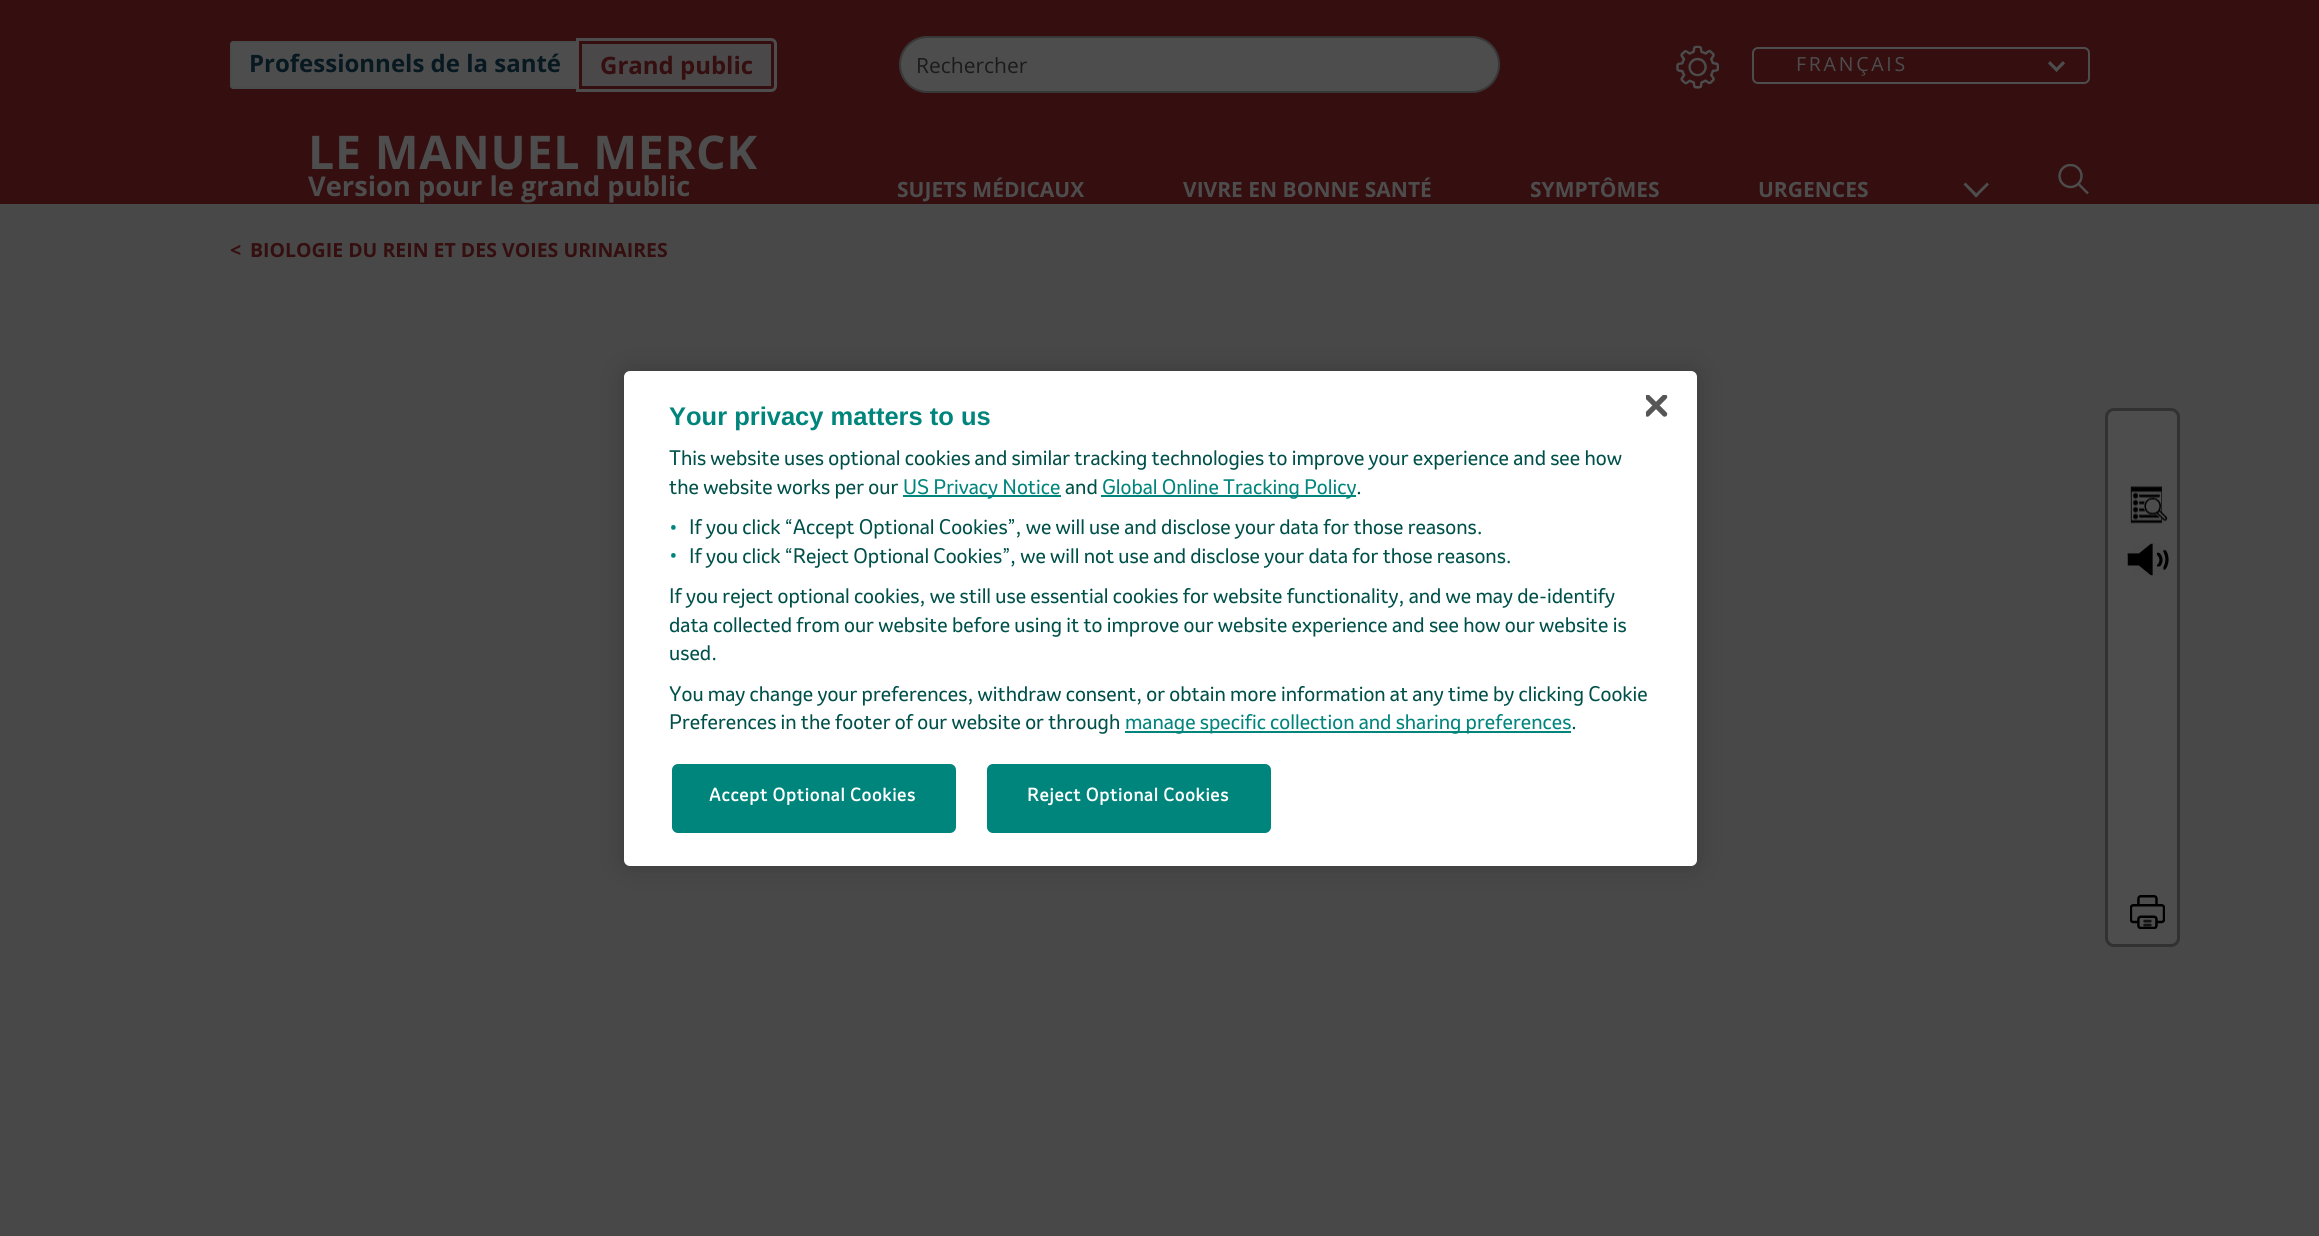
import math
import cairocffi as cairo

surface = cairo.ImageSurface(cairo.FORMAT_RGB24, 2319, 1236)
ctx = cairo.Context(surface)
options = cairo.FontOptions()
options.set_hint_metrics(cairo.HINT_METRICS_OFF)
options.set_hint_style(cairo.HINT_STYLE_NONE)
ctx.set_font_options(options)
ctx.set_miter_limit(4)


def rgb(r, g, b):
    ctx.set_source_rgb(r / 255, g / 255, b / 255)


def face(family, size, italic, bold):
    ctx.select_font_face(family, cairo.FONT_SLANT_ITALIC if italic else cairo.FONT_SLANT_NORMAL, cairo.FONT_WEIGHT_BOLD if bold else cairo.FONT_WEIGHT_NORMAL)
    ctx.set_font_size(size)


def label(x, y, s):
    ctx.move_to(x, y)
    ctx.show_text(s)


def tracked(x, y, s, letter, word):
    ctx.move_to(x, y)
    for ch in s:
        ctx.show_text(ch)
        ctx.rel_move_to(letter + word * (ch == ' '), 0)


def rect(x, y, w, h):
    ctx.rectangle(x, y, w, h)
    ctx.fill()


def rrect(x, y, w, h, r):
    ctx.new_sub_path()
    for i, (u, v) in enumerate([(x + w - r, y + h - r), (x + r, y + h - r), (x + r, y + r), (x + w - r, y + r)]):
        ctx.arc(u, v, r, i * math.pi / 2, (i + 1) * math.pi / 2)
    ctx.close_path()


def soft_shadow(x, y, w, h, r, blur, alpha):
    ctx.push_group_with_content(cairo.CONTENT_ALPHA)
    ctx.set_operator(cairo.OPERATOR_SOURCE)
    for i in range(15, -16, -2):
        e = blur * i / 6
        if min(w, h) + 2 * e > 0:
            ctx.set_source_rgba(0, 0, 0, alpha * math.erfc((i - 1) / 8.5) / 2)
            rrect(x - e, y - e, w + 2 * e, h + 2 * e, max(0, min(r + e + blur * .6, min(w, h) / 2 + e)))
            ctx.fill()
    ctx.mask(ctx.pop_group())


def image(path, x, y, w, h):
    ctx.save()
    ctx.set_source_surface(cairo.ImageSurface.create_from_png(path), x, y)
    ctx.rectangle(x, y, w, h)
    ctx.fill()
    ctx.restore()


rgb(72, 72, 72)
ctx.paint()
rgb(53, 14, 15)
rect(0, 0, 2319, 204)
rgb(77, 77, 77)
ctx.new_path()
ctx.move_to(233, 42)
ctx.line_to(580, 42)
ctx.line_to(580, 88)
ctx.line_to(233, 88)
ctx.curve_to(232, 88, 231, 87, 231, 86)
ctx.line_to(231, 44)
ctx.curve_to(231, 43, 232, 42, 233, 42)
ctx.close_path()
ctx.fill_preserve()
rgb(74, 75, 75)
ctx.stroke()
face('Open Sans', 24, 0, 1)
rgb(7, 24, 33)
label(249, 72, 'Professionnels de la santé')
rgb(75, 72, 73)
ctx.new_path()
ctx.move_to(580.5, 42.5)
ctx.line_to(771, 42.5)
ctx.curve_to(772, 42.5, 772.5, 43, 772.5, 44)
ctx.line_to(772.5, 86)
ctx.curve_to(772.5, 87, 772, 87.5, 771, 87.5)
ctx.line_to(580.5, 87.5)
ctx.close_path()
ctx.fill_preserve()
rgb(53, 14, 15)
ctx.set_line_width(3)
ctx.stroke()
ctx.new_path()
ctx.move_to(577.5, 39.5)
ctx.line_to(771, 39.5)
ctx.curve_to(773.5, 39.5, 775.5, 41.5, 775.5, 44)
ctx.line_to(775.5, 86)
ctx.curve_to(775.5, 88.5, 773.5, 90.5, 771, 90.5)
ctx.line_to(577.5, 90.5)
ctx.close_path()
rgb(77, 77, 77)
ctx.stroke()
rgb(53, 14, 15)
label(600, 74, 'Grand public')
rgb(77, 77, 77)
rrect(899, 36, 601, 57, 28.5)
ctx.fill()
rrect(900, 37, 599, 55, 27.5)
ctx.set_source_rgba(0, 0, 0, 0.27)
ctx.set_line_width(2)
ctx.stroke()
face('Open Sans', 21, 0, 0)
rgb(27, 27, 27)
label(916, 73, 'Rechercher')
image('image0.png', 1676, 45, 43, 44)
rrect(1753, 48, 336, 35, 5)
rgb(77, 77, 77)
ctx.stroke()
face('Open Sans', 19.5, 0, 0)
tracked(1796, 71, 'FRANÇAIS', 2.75, 0)
ctx.new_path()
ctx.move_to(2063, 61)
ctx.line_to(2065, 63.5)
ctx.line_to(2056.5, 72)
ctx.line_to(2054.5, 69.5)
ctx.close_path()
ctx.fill()
ctx.new_path()
ctx.move_to(2050, 61)
ctx.line_to(2058.5, 69.5)
ctx.line_to(2056.5, 72)
ctx.line_to(2048, 63.5)
ctx.close_path()
ctx.fill()
face('Open Sans', 46.5, 0, 1)
tracked(308, 169, 'LE MANUEL MERCK', 0.75, 0)
face('Open Sans', 27.25, 0, 1)
label(308, 196, 'Version pour le grand public')
face('Open Sans', 21, 0, 1)
label(897, 197, 'SUJETS MÉDICAUX')
label(1183, 197, 'VIVRE EN BONNE SANTÉ')
label(1530, 197, 'SYMPTÔMES')
label(1758, 197, 'URGENCES')
ctx.new_path()
ctx.move_to(1987, 182.5)
ctx.line_to(1989, 184.5)
ctx.line_to(1976, 197.5)
ctx.line_to(1974, 195.5)
ctx.close_path()
ctx.fill()
ctx.new_path()
ctx.move_to(1965.5, 182.5)
ctx.line_to(1978.5, 195.5)
ctx.line_to(1976, 197.5)
ctx.line_to(1963.5, 184.5)
ctx.close_path()
ctx.fill()
ctx.save()
ctx.rectangle(2058, 164, 32, 31)
ctx.clip()
ctx.arc(2070.5, 176, 11, 0, 2 * math.pi)
ctx.set_line_width(2.4)
ctx.stroke()
ctx.restore()
ctx.new_path()
ctx.move_to(2088, 193.5)
ctx.line_to(2079, 184.5)
ctx.set_line_width(2.4)
ctx.stroke()
face('Open Sans', 19.5, 0, 1)
rgb(53, 14, 15)
label(230, 257, '<')
label(250, 257, 'BIOLOGIE DU REIN ET DES VOIES URINAIRES')
rgb(77, 77, 77)
rrect(2106.5, 409.5, 72, 536, 7.5)
ctx.fill_preserve()
rgb(49, 49, 49)
ctx.set_line_width(3)
ctx.stroke()
image('image1.png', 2130, 486, 38, 38)
image('image2.png', 2127, 543, 42, 33)
image('image3.png', 2130, 895, 35, 34)
rgb(0, 0, 0)
soft_shadow(624, 371, 1073, 495, 6, 13.5, 0.2)
rgb(255, 255, 255)
rrect(624, 371, 1073, 495, 6)
ctx.fill()
face('Liberation Sans', 25.5, 0, 1)
rgb(0, 133, 124)
label(669, 425, 'Your privacy matters to us')
face('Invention', 19.5, 0, 0)
rgb(0, 80, 74)
label(669, 465, 'This website uses optional cookies and similar tracking technologies to improve your experience and see how')
label(669, 494, 'the website works per our')
rgb(0, 133, 124)
rect(903, 495, 158, 2)
label(903, 494, 'US Privacy Notice')
rgb(0, 80, 74)
label(1065, 494, 'and')
rgb(0, 133, 124)
rect(1101, 495, 255, 2)
label(1102, 494, 'Global Online Tracking Policy')
rgb(0, 80, 74)
label(1356, 494, '.')
face('Invention', 23, 0, 0)
rgb(0, 133, 124)
label(669, 534, '•')
face('Invention', 19.5, 0, 0)
rgb(0, 80, 74)
label(689, 534, 'If you click “Accept Optional Cookies”, we will use and disclose your data for those reasons.')
face('Invention', 23, 0, 0)
rgb(0, 133, 124)
label(669, 562, '•')
face('Invention', 19.5, 0, 0)
rgb(0, 80, 74)
label(689, 563, 'If you click “Reject Optional Cookies”, we will not use and disclose your data for those reasons.')
label(669, 603, 'If you reject optional cookies, we still use essential cookies for website functionality, and we may de-identify')
label(669, 632, 'data collected from our website before using it to improve our website experience and see how our website is')
label(669, 660, 'used.')
label(669, 701, 'You may change your preferences, withdraw consent, or obtain more information at any time by clicking Cookie')
label(669, 729, 'Preferences in the footer of our website or through')
rgb(0, 133, 124)
rect(1125, 731, 446, 2)
label(1125, 729, 'manage specific collection and sharing preferences')
rgb(0, 80, 74)
label(1571, 729, '.')
image('image4.png', 1646, 395, 22, 22)
rgb(0, 133, 124)
rrect(673, 765, 282, 67, 5)
ctx.fill_preserve()
ctx.set_line_width(2)
ctx.stroke()
face('Invention', 17, 0, 1)
rgb(255, 255, 255)
tracked(709, 801, 'Accept Optional Cookies', 0.85, 0)
rgb(0, 133, 124)
rrect(988, 765, 282, 67, 5)
ctx.fill_preserve()
ctx.stroke()
rgb(255, 255, 255)
tracked(1027, 801, 'Reject Optional Cookies', 0.85, 0)
surface.write_to_png('render.png')
